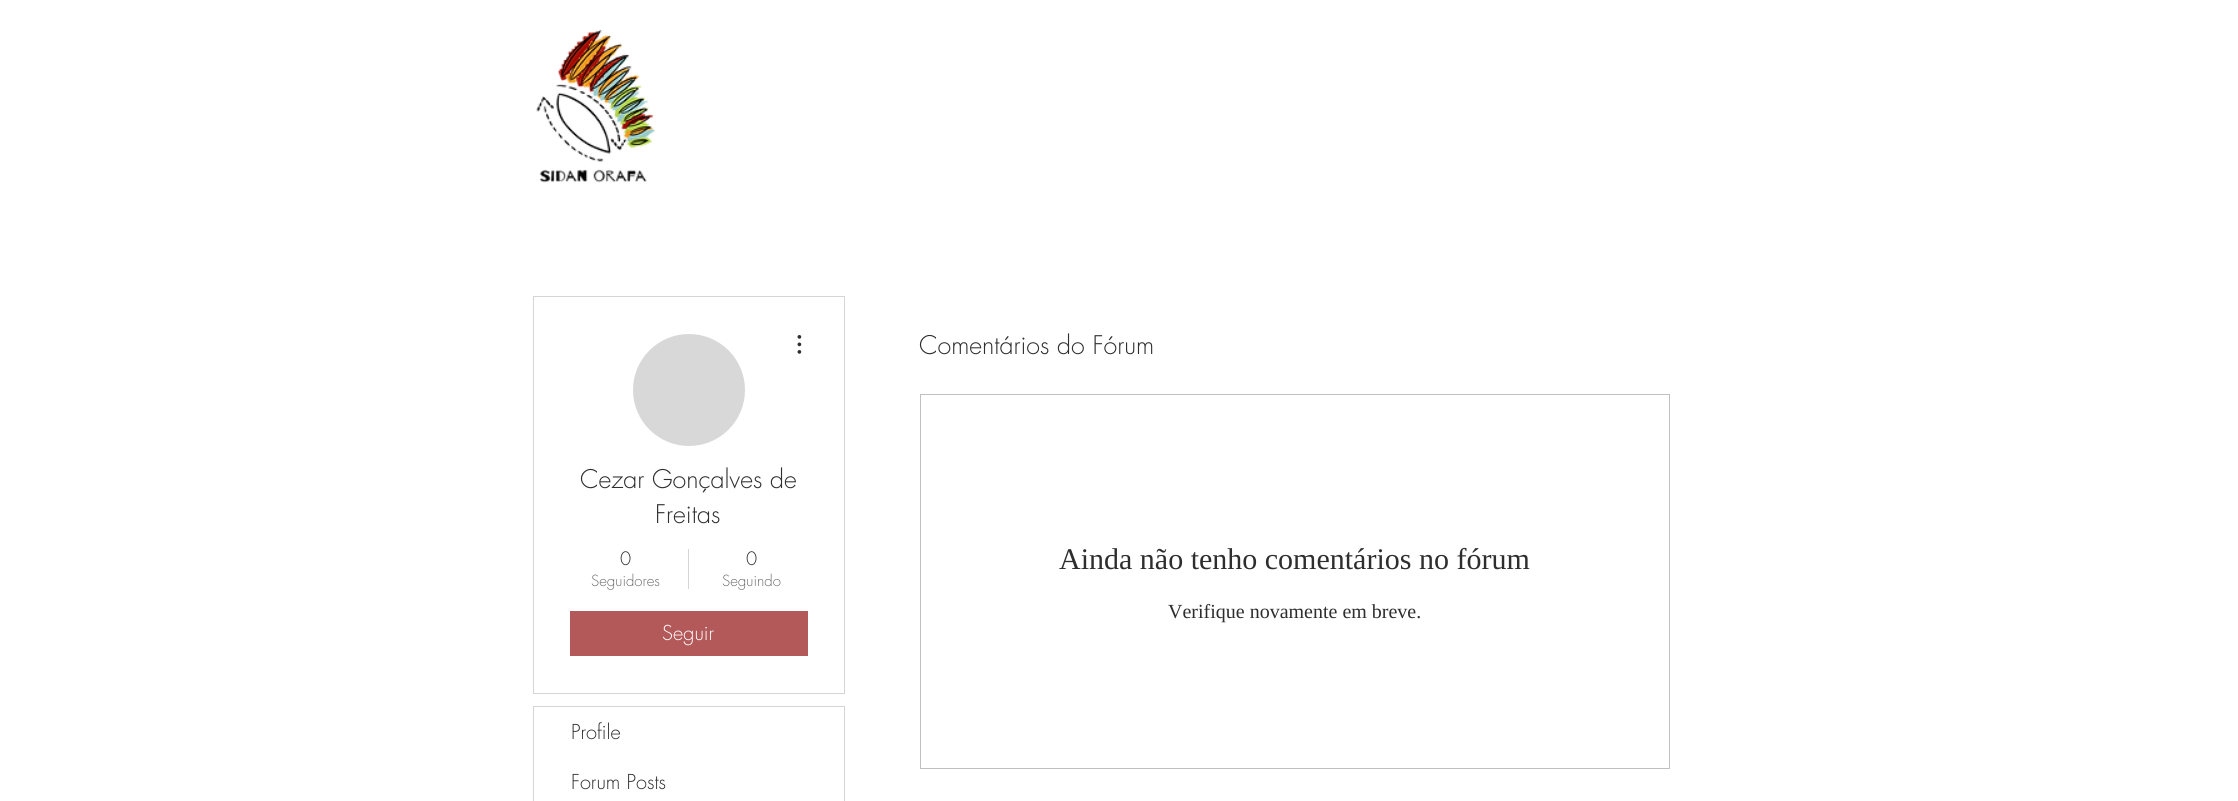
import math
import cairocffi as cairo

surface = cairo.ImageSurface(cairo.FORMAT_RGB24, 2238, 801)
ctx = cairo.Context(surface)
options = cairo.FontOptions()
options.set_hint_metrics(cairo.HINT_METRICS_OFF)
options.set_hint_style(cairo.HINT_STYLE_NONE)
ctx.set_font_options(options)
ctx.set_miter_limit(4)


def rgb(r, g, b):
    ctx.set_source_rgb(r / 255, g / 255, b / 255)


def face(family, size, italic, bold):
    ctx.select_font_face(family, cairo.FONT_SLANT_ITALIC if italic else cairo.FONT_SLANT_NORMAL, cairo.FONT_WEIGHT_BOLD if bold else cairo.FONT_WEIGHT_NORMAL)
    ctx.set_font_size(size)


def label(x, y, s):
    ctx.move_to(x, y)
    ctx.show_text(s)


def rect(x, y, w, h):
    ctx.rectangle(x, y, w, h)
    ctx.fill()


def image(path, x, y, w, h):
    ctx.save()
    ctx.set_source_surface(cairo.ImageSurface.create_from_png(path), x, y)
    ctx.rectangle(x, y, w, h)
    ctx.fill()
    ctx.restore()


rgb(255, 255, 255)
ctx.paint()
image('image0.png', 536, 29, 120, 154)
ctx.rectangle(533.5, 296.5, 311, 397)
rgb(213, 213, 213)
ctx.set_line_width(1)
ctx.stroke()
rgb(216, 216, 216)
ctx.arc(689, 390, 56, 0, 2 * math.pi)
ctx.fill()
image('image1.png', 797, 335, 5, 19)
face('futura Light', 25, 0, 0)
rgb(47, 46, 46)
label(580, 488, 'Cezar Gonçalves de')
label(655, 523, 'Freitas')
face('futura Light', 18, 0, 0)
label(620, 565, '0')
face('futura Light', 15, 0, 0)
rgb(109, 109, 109)
label(591, 586, 'Seguidores')
rgb(213, 213, 213)
rect(688, 549, 1, 40)
face('futura Light', 18, 0, 0)
rgb(47, 46, 46)
label(746, 565, '0')
face('futura Light', 15, 0, 0)
rgb(109, 109, 109)
label(722, 586, 'Seguindo')
rgb(179, 89, 89)
rect(570, 611, 238, 45)
face('futura Light', 20, 0, 0)
rgb(255, 255, 255)
label(662, 640, 'Seguir')
ctx.rectangle(533.5, 706.5, 311, 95)
rgb(213, 213, 213)
ctx.stroke()
rgb(47, 46, 46)
label(571, 739, 'Profile')
label(571, 789, 'Forum Posts')
face('futura Light', 25, 0, 0)
label(919, 354, 'Comentários do Fórum')
ctx.rectangle(920.5, 394.5, 749, 374)
rgb(193, 192, 192)
ctx.stroke()
face('Liberation Serif', 30, 0, 0)
rgb(47, 46, 46)
label(1059, 569, 'Ainda não tenho comentários no fórum')
face('Liberation Serif', 20, 0, 0)
label(1168, 618, 'Verifique novamente em breve.')
surface.write_to_png('render.png')
